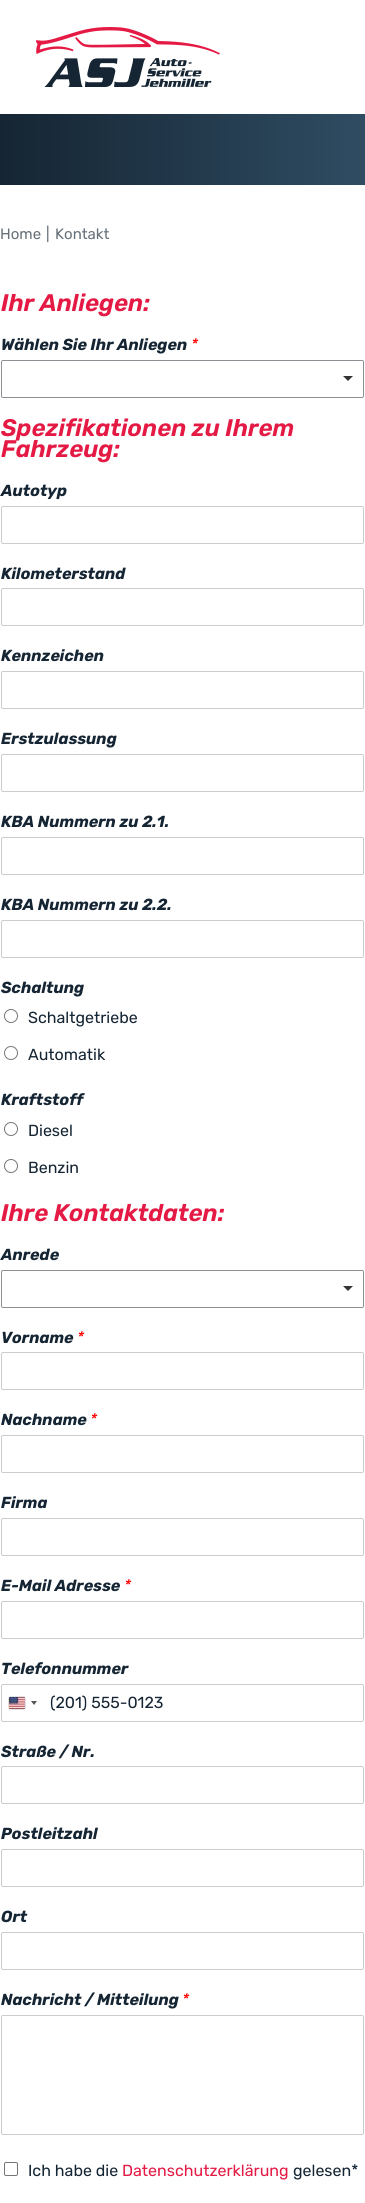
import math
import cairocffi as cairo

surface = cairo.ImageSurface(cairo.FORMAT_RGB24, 365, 2203)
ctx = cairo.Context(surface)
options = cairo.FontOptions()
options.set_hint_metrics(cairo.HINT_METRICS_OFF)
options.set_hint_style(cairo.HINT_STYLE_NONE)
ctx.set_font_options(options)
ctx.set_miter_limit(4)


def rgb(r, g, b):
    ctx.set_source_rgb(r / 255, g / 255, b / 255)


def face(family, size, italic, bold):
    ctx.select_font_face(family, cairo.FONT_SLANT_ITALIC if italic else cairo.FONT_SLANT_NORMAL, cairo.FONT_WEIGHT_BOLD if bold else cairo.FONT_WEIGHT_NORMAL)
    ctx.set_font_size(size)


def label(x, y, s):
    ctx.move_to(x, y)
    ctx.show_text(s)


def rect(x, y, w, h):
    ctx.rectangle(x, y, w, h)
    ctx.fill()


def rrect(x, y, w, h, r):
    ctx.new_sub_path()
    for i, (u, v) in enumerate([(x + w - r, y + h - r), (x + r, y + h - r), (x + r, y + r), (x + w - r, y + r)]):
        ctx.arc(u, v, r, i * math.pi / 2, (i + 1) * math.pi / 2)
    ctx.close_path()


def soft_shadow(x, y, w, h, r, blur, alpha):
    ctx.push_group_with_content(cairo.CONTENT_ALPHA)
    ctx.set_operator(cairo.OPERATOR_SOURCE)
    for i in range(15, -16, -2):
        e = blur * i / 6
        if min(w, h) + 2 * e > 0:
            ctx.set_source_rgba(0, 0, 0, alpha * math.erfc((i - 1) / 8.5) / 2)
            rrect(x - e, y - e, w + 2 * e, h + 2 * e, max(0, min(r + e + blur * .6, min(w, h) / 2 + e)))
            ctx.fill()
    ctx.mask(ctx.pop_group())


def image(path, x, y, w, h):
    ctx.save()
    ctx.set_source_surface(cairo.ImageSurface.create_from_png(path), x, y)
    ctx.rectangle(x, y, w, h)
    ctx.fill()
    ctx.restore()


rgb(255, 255, 255)
ctx.paint()
image('image0.png', 36, 27, 184, 60)
gradient = cairo.LinearGradient(0, 149, 365, 149)
gradient.add_color_stop_rgba(0, 0.082, 0.145, 0.2, 1)
gradient.add_color_stop_rgba(1, 0.184, 0.298, 0.384, 1)
ctx.set_source(gradient)
rect(0, 114, 365, 71)
face('Rubik', 15, 0, 0)
rgb(103, 113, 122)
label(0, 239, 'Home')
label(46, 239, '|')
label(55, 239, 'Kontakt')
face('Rubik SemiBold', 24, 1, 0)
rgb(228, 26, 68)
label(1, 311, 'Ihr Anliegen:')
face('Rubik', 16, 1, 1)
rgb(21, 37, 51)
label(1, 350, 'Wählen Sie Ihr Anliegen')
face('Rubik', 16, 1, 0)
rgb(255, 0, 0)
label(191, 350, '*')
rrect(1.5, 360.5, 362, 37, 1.5)
rgb(140, 143, 148)
ctx.set_line_width(1)
ctx.stroke()
rgb(51, 51, 51)
ctx.new_path()
ctx.move_to(343, 376)
ctx.line_to(353, 376)
ctx.line_to(348, 381)
ctx.close_path()
ctx.fill()
face('Rubik SemiBold', 24, 1, 0)
rgb(228, 26, 68)
label(1, 436, 'Spezifikationen zu Ihrem')
label(1, 457, 'Fahrzeug:')
face('Rubik', 16, 1, 1)
rgb(21, 37, 51)
label(1, 496, 'Autotyp')
rrect(1.5, 506.5, 362, 37, 1.5)
rgb(204, 204, 204)
ctx.stroke()
rgb(21, 37, 51)
label(1, 579, 'Kilometerstand')
rrect(1.5, 588.5, 362, 37, 1.5)
rgb(204, 204, 204)
ctx.stroke()
rgb(21, 37, 51)
label(1, 661, 'Kennzeichen')
rrect(1.5, 671.5, 362, 37, 1.5)
rgb(204, 204, 204)
ctx.stroke()
rgb(21, 37, 51)
label(1, 744, 'Erstzulassung')
rrect(1.5, 754.5, 362, 37, 1.5)
rgb(204, 204, 204)
ctx.stroke()
rgb(21, 37, 51)
label(1, 827, 'KBA Nummern zu 2.1.')
rrect(1.5, 837.5, 362, 37, 1.5)
rgb(204, 204, 204)
ctx.stroke()
rgb(21, 37, 51)
label(1, 910, 'KBA Nummern zu 2.2.')
rrect(1.5, 920.5, 362, 37, 1.5)
rgb(204, 204, 204)
ctx.stroke()
rgb(21, 37, 51)
label(1, 993, 'Schaltung')
ctx.new_path()
ctx.arc(11, 1016, 6.5, 0, 2 * math.pi)
rgb(118, 118, 118)
ctx.stroke()
face('Rubik', 16, 0, 0)
rgb(21, 37, 51)
label(28, 1023, 'Schaltgetriebe')
ctx.new_path()
ctx.arc(11, 1053, 6.5, 0, 2 * math.pi)
rgb(118, 118, 118)
ctx.stroke()
rgb(21, 37, 51)
label(28, 1060, 'Automatik')
face('Rubik', 16, 1, 1)
label(1, 1105, 'Kraftstoff')
ctx.new_path()
ctx.arc(11, 1129, 6.5, 0, 2 * math.pi)
rgb(118, 118, 118)
ctx.stroke()
face('Rubik', 16, 0, 0)
rgb(21, 37, 51)
label(28, 1136, 'Diesel')
ctx.new_path()
ctx.arc(11, 1166, 6.5, 0, 2 * math.pi)
rgb(118, 118, 118)
ctx.stroke()
rgb(21, 37, 51)
label(28, 1173, 'Benzin')
face('Rubik SemiBold', 24, 1, 0)
rgb(228, 26, 68)
label(1, 1221, 'Ihre Kontaktdaten:')
face('Rubik', 16, 1, 1)
rgb(21, 37, 51)
label(1, 1260, 'Anrede')
rrect(1.5, 1270.5, 362, 37, 1.5)
rgb(140, 143, 148)
ctx.stroke()
rgb(51, 51, 51)
ctx.new_path()
ctx.move_to(343, 1286)
ctx.line_to(353, 1286)
ctx.line_to(348, 1291)
ctx.close_path()
ctx.fill()
rgb(21, 37, 51)
label(1, 1343, 'Vorname')
face('Rubik', 16, 1, 0)
rgb(255, 0, 0)
label(77, 1343, '*')
rrect(1.5, 1352.5, 362, 37, 1.5)
rgb(204, 204, 204)
ctx.stroke()
face('Rubik', 16, 1, 1)
rgb(21, 37, 51)
label(1, 1425, 'Nachname')
face('Rubik', 16, 1, 0)
rgb(255, 0, 0)
label(90, 1425, '*')
rrect(1.5, 1435.5, 362, 37, 1.5)
rgb(204, 204, 204)
ctx.stroke()
face('Rubik', 16, 1, 1)
rgb(21, 37, 51)
label(1, 1508, 'Firma')
rrect(1.5, 1518.5, 362, 37, 1.5)
rgb(204, 204, 204)
ctx.stroke()
rgb(21, 37, 51)
label(1, 1591, 'E-Mail Adresse')
face('Rubik', 16, 1, 0)
rgb(255, 0, 0)
label(124, 1591, '*')
rrect(1.5, 1601.5, 362, 37, 1.5)
rgb(204, 204, 204)
ctx.stroke()
face('Rubik', 16, 1, 1)
rgb(21, 37, 51)
label(1, 1674, 'Telefonnummer')
rrect(1.5, 1684.5, 362, 37, 1.5)
rgb(204, 204, 204)
ctx.stroke()
rgb(136, 136, 136)
soft_shadow(9, 1697, 16, 12, 1, 0.5, 1)
image('image1.png', 9, 1697, 16, 12)
rgb(85, 85, 85)
ctx.new_path()
ctx.move_to(31, 1701)
ctx.line_to(37, 1701)
ctx.line_to(34, 1705)
ctx.close_path()
ctx.fill()
face('Rubik', 16, 0, 0)
rgb(21, 37, 51)
label(50, 1708, '(201) 555-0123')
face('Rubik', 16, 1, 1)
label(1, 1757, 'Straße / Nr.')
rrect(1.5, 1766.5, 362, 37, 1.5)
rgb(204, 204, 204)
ctx.stroke()
rgb(21, 37, 51)
label(1, 1839, 'Postleitzahl')
rrect(1.5, 1849.5, 362, 37, 1.5)
rgb(204, 204, 204)
ctx.stroke()
rgb(21, 37, 51)
label(1, 1922, 'Ort')
rrect(1.5, 1932.5, 362, 37, 1.5)
rgb(204, 204, 204)
ctx.stroke()
rgb(21, 37, 51)
label(1, 2005, 'Nachricht / Mitteilung')
face('Rubik', 16, 1, 0)
rgb(255, 0, 0)
label(182, 2005, '*')
rrect(1.5, 2015.5, 362, 119, 1.5)
rgb(204, 204, 204)
ctx.stroke()
rrect(4.5, 2162.5, 13, 13, 1.5)
rgb(118, 118, 118)
ctx.stroke()
face('Rubik', 16, 0, 0)
rgb(21, 37, 51)
label(28, 2176, 'Ich habe die')
rgb(228, 26, 68)
label(122, 2176, 'Datenschutzerklärung')
rgb(21, 37, 51)
label(293, 2176, 'gelesen*')
surface.write_to_png('render.png')
